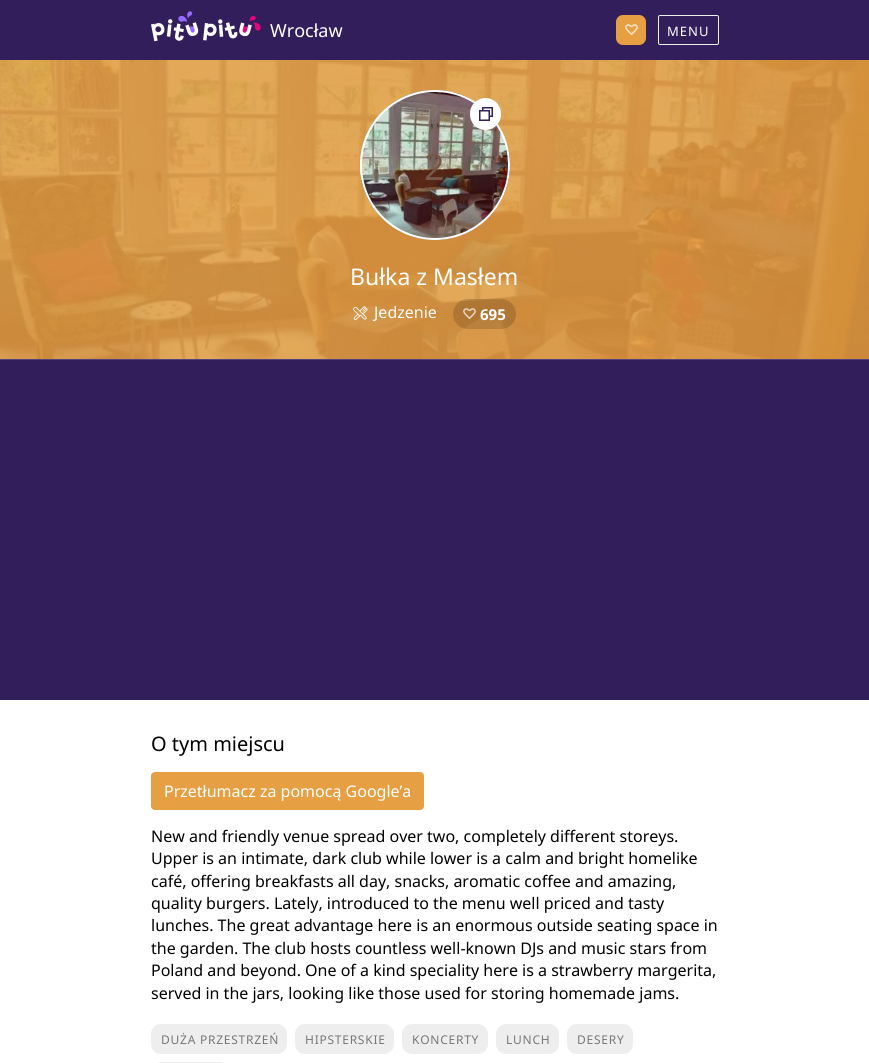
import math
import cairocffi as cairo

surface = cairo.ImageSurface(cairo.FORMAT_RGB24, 869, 1063)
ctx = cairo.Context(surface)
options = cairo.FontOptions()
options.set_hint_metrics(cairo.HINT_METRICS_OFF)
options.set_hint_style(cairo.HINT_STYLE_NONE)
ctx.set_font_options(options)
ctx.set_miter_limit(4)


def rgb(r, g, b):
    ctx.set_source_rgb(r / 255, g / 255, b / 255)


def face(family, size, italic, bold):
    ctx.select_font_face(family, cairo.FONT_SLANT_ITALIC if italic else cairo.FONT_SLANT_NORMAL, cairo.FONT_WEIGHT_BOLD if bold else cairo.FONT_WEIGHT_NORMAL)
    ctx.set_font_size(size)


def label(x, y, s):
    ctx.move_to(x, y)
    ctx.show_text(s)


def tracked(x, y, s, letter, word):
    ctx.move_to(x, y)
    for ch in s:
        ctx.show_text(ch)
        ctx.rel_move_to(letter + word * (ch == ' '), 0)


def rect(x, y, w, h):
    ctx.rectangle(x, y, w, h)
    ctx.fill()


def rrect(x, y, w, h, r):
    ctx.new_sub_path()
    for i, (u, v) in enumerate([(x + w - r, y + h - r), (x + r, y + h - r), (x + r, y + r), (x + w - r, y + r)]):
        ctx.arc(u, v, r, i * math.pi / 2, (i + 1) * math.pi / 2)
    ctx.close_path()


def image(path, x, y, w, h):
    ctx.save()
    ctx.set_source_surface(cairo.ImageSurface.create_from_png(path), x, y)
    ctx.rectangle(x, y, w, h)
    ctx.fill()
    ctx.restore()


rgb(50, 30, 90)
ctx.paint()
image('image0.png', 151, 11, 110, 31)
face('Noto Sans', 18, 0, 0)
rgb(255, 255, 255)
label(270, 37, 'Wrocław')
rgb(230, 159, 67)
rrect(616, 15, 30, 30, 7)
ctx.fill()
image('image1.png', 625, 24, 13, 12)
rrect(658.5, 15.5, 60, 29, 1.5)
rgb(238, 238, 238)
ctx.set_line_width(1)
ctx.stroke()
face('Noto Sans', 13, 0, 0)
rgb(255, 255, 255)
tracked(667, 36, 'MENU', 1, 0)
rgb(230, 159, 67)
rect(0, 60, 869, 299)
image('image2.png', 0, 60, 869, 299)
image('image3.png', 360, 90, 150, 150)
ctx.arc(435, 165, 74, 0, 2 * math.pi)
rgb(255, 255, 255)
ctx.set_line_width(2)
ctx.stroke()
rrect(470, 98, 31, 32, 15.5)
ctx.fill()
image('image4.png', 479, 107, 14, 14)
face('Noto Sans', 36, 0, 0)
rgb(118, 88, 74)
label(424, 180, '2')
face('Noto Sans', 23, 0, 0)
rgb(255, 255, 255)
label(350, 285, 'Bułka z Masłem')
image('image5.png', 353, 306, 15, 14)
face('Noto Sans', 16, 0, 0)
label(374, 318, 'Jedzenie')
ctx.set_source_rgba(0, 0, 0, 0.15)
rrect(453, 299, 63, 30, 15)
ctx.fill()
image('image6.png', 463, 308, 13, 12)
face('Noto Sans', 15, 0, 1)
rgb(255, 255, 255)
label(480, 320, '695')
rgb(84, 64, 124)
rect(0, 359, 869, 1)
rgb(255, 255, 255)
rect(0, 700, 869, 363)
face('Noto Sans', 20, 0, 0)
rgb(0, 0, 0)
label(151, 751, 'O tym miejscu')
rgb(230, 159, 67)
rrect(151, 772, 273, 38, 4)
ctx.fill()
face('Noto Sans', 16, 0, 0)
rgb(255, 255, 255)
label(164, 797, 'Przetłumacz za pomocą Google’a')
rgb(0, 0, 0)
label(151, 842, 'New and friendly venue spread over two, completely different storeys.')
label(151, 864, 'Upper is an intimate, dark club while lower is a calm and bright homelike')
label(151, 887, 'café, offering breakfasts all day, snacks, aromatic coffee and amazing,')
label(151, 909, 'quality burgers. Lately, introduced to the menu well priced and tasty')
label(151, 931, 'lunches. The great advantage here is an enormous outside seating space in')
label(151, 954, 'the garden. The club hosts countless well-known DJs and music stars from')
label(151, 976, 'Poland and beyond. One of a kind speciality here is a strawberry margerita,')
label(151, 999, 'served in the jars, looking like those used for storing homemade jams.')
rgb(238, 238, 238)
rrect(151, 1024, 136, 30, 10)
ctx.fill()
face('Noto Sans', 12, 0, 0)
rgb(119, 119, 119)
tracked(161, 1044, 'DUŻA PRZESTRZEŃ', 0.75, 0)
rgb(238, 238, 238)
rrect(295, 1024, 99, 30, 10)
ctx.fill()
rgb(119, 119, 119)
tracked(305, 1044, 'HIPSTERSKIE', 0.75, 0)
rgb(238, 238, 238)
rrect(402, 1024, 86, 30, 10)
ctx.fill()
rgb(119, 119, 119)
tracked(412, 1044, 'KONCERTY', 0.75, 0)
rgb(238, 238, 238)
rrect(496, 1024, 63, 30, 10)
ctx.fill()
rgb(119, 119, 119)
tracked(506, 1044, 'LUNCH', 0.75, 0)
rgb(238, 238, 238)
rrect(567, 1024, 66, 30, 10)
ctx.fill()
rgb(119, 119, 119)
tracked(577, 1044, 'DESERY', 0.75, 0)
rgb(238, 238, 238)
rrect(151, 1062, 79, 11, 10)
ctx.fill()
surface.write_to_png('render.png')
